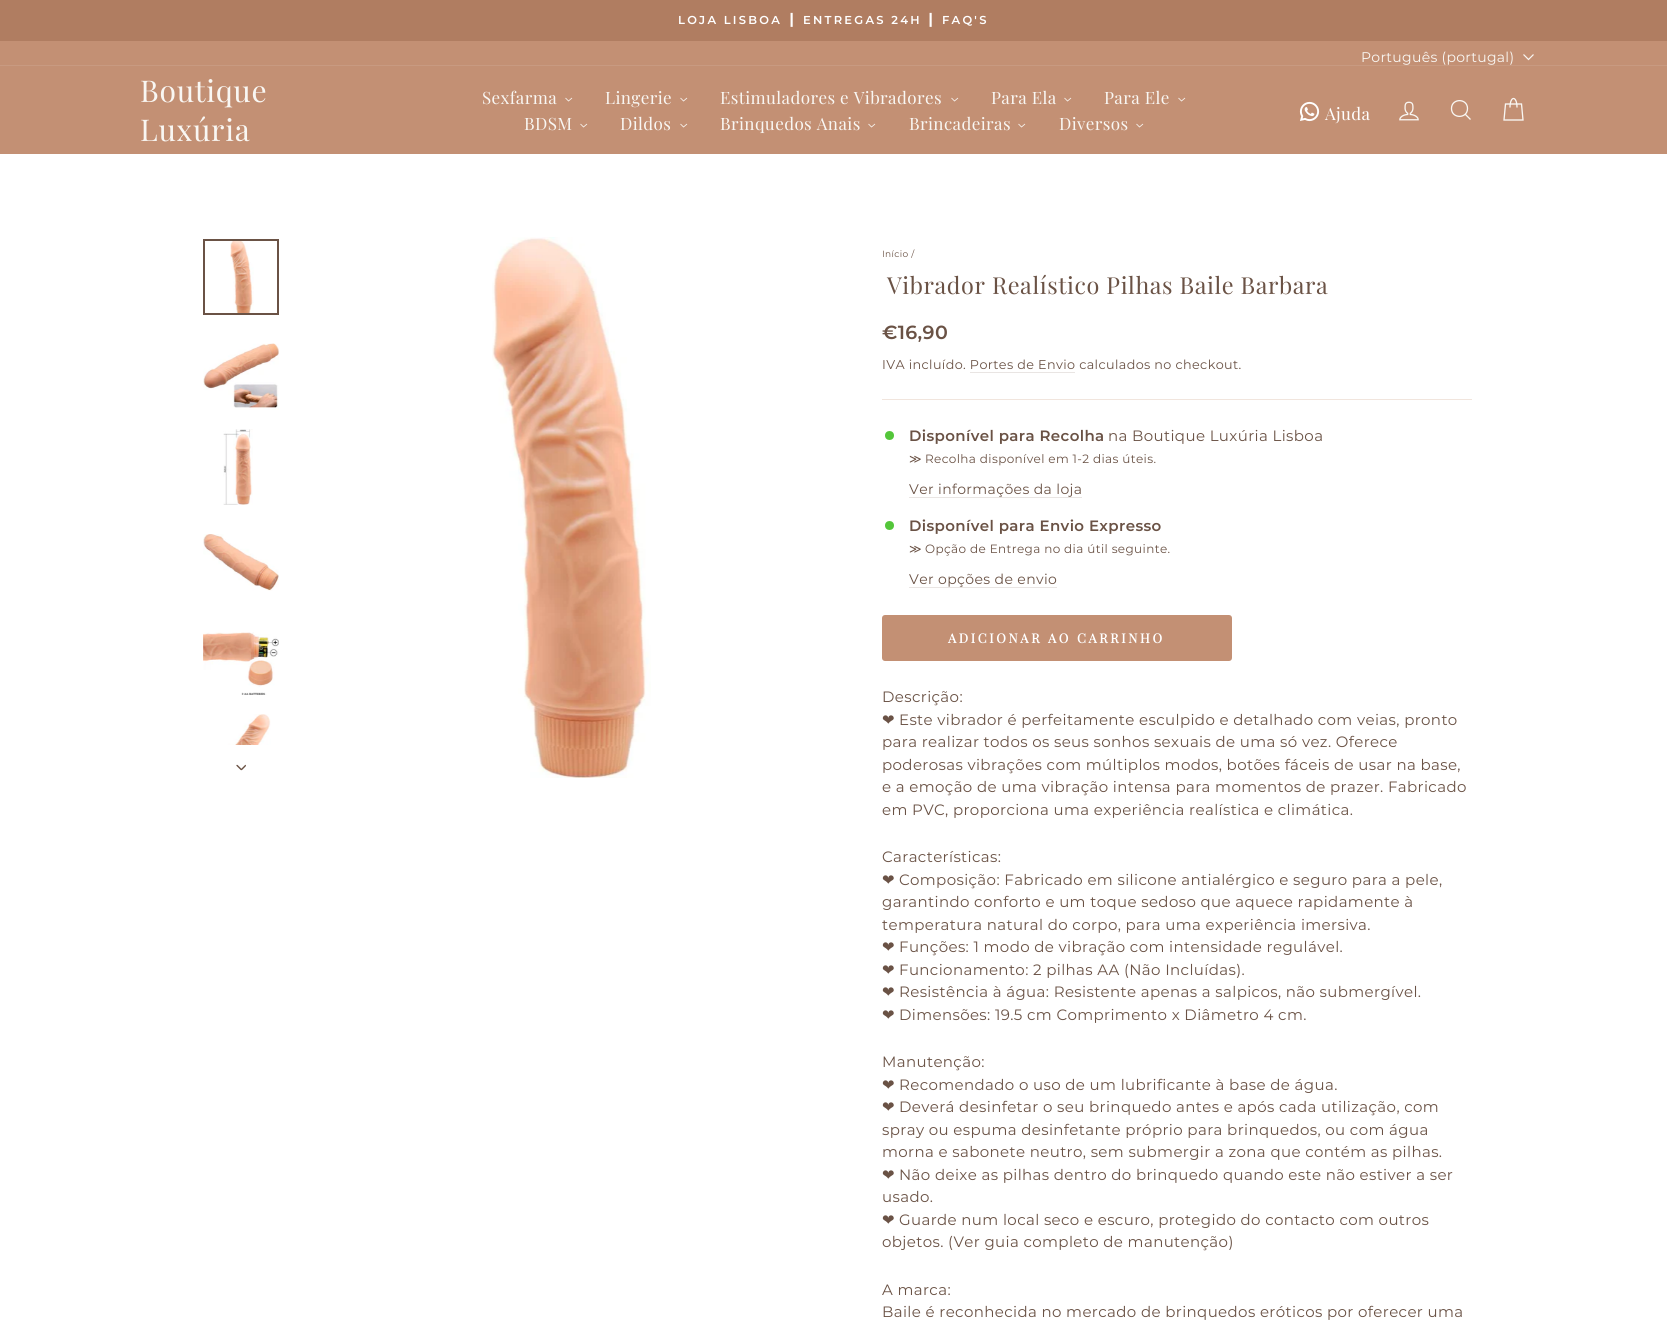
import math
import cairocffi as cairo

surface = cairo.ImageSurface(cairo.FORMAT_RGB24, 1667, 1333)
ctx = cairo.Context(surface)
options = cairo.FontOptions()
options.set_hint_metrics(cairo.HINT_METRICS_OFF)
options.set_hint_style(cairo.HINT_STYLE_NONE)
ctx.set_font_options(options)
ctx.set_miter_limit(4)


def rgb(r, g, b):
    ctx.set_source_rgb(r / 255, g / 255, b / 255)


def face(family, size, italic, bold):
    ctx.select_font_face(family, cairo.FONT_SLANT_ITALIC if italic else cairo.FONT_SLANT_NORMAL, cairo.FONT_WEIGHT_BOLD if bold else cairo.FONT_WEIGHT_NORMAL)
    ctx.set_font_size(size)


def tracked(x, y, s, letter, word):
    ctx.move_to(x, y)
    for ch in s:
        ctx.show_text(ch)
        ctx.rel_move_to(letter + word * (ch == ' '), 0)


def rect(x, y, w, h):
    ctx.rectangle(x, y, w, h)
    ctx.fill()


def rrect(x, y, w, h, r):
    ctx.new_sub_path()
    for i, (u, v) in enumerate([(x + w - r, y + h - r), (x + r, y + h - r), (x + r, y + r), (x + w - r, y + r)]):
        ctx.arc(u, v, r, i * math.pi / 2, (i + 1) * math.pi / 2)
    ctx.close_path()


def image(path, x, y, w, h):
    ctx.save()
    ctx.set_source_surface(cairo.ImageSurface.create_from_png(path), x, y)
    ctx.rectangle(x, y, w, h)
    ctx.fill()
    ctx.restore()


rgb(255, 255, 255)
ctx.paint()
rgb(176, 125, 97)
rect(0, 0, 1667, 41)
face('Montserrat SemiBold', 11.5, 0, 0)
rgb(255, 255, 255)
tracked(678, 24, 'LOJA LISBOA', 2.25, 0)
face('DejaVu Sans', 11.5, 0, 1)
tracked(788, 24, '┃', 2.25, 0)
face('Montserrat SemiBold', 11.5, 0, 0)
tracked(803, 24, 'ENTREGAS 24H', 2.25, 0)
face('DejaVu Sans', 11.5, 0, 1)
tracked(927, 24, '┃', 2.25, 0)
face('Montserrat SemiBold', 11.5, 0, 0)
tracked(942, 24, 'FAQ\'S', 2.25, 0)
rgb(195, 144, 116)
rect(0, 41, 1667, 24)
face('Montserrat', 14, 0, 0)
rgb(249, 247, 243)
tracked(1361, 62, 'Português (portugal)', 0.3, 0)
ctx.new_path()
ctx.move_to(1523.5, 54.5)
ctx.line_to(1528.5, 59.5)
ctx.line_to(1533.5, 54.5)
ctx.set_line_width(1.2)
ctx.stroke()
rgb(195, 144, 116)
rect(0, 66, 1667, 88)
rgb(200, 154, 129)
rect(0, 65, 1667, 1)
face('Playfair Display', 30, 0, 0)
rgb(249, 247, 243)
tracked(140, 102, 'Boutique', 0.75, 0)
tracked(140, 141, 'Luxúria', 0.75, 0)
face('Playfair Display', 17, 0, 0)
tracked(482, 104, 'Sexfarma', 0.4, 0)
ctx.new_path()
ctx.move_to(565.5, 98)
ctx.line_to(568.5, 101)
ctx.line_to(572, 98)
ctx.set_line_width(0.8)
ctx.stroke()
tracked(605, 104, 'Lingerie', 0.4, 0)
ctx.new_path()
ctx.move_to(680.5, 98)
ctx.line_to(683.5, 101)
ctx.line_to(687, 98)
ctx.stroke()
tracked(720, 104, 'Estimuladores e Vibradores', 0.4, 0)
ctx.new_path()
ctx.move_to(951.5, 98)
ctx.line_to(954.5, 101)
ctx.line_to(958, 98)
ctx.stroke()
tracked(991, 104, 'Para Ela', 0.4, 0)
ctx.new_path()
ctx.move_to(1064.5, 98)
ctx.line_to(1067.5, 101)
ctx.line_to(1071, 98)
ctx.stroke()
tracked(1104, 104, 'Para Ele', 0.4, 0)
ctx.new_path()
ctx.move_to(1178.5, 98)
ctx.line_to(1181.5, 101)
ctx.line_to(1185, 98)
ctx.stroke()
tracked(524, 130, 'BDSM', 0.4, 0)
ctx.new_path()
ctx.move_to(580.5, 124)
ctx.line_to(583.5, 127)
ctx.line_to(587, 124)
ctx.stroke()
tracked(620, 130, 'Dildos', 0.4, 0)
ctx.new_path()
ctx.move_to(680.5, 124)
ctx.line_to(683.5, 127)
ctx.line_to(687, 124)
ctx.stroke()
tracked(720, 130, 'Brinquedos Anais', 0.4, 0)
ctx.new_path()
ctx.move_to(868.5, 124)
ctx.line_to(871.5, 127)
ctx.line_to(875, 124)
ctx.stroke()
tracked(909, 130, 'Brincadeiras', 0.4, 0)
ctx.new_path()
ctx.move_to(1018.5, 124)
ctx.line_to(1021.5, 127)
ctx.line_to(1025, 124)
ctx.stroke()
tracked(1059, 130, 'Diversos', 0.4, 0)
ctx.new_path()
ctx.move_to(1136.5, 124)
ctx.line_to(1139.5, 127)
ctx.line_to(1143, 124)
ctx.stroke()
image('image0.png', 1299, 101, 21, 21)
rgb(255, 255, 255)
tracked(1325, 120, 'Ajuda', 0.4, 0)
image('image1.png', 1399, 101, 20, 20)
ctx.new_path()
ctx.move_to(1467.5, 108.5)
ctx.curve_to(1467.5, 119, 1451.5, 119, 1451.5, 108.5)
ctx.curve_to(1451.5, 98, 1467.5, 98, 1467.5, 108.5)
ctx.close_path()
ctx.move_to(1470.5, 119.5)
ctx.line_to(1465.5, 114.5)
rgb(249, 247, 243)
ctx.set_line_width(1.3)
ctx.stroke()
ctx.new_path()
ctx.move_to(1510, 107.5)
ctx.curve_to(1510, 95.5, 1517, 95.5, 1517, 107.5)
ctx.move_to(1505.5, 104)
ctx.line_to(1521.5, 104)
ctx.line_to(1523, 120)
ctx.line_to(1504, 120)
ctx.close_path()
ctx.stroke()
image('image2.png', 230, 241, 24, 72)
ctx.rectangle(204, 240, 74, 74)
rgb(106, 82, 69)
ctx.set_line_width(2)
ctx.stroke()
image('image3.png', 203, 343, 76, 67)
image('image4.png', 223, 429, 30, 76)
image('image5.png', 203, 534, 76, 57)
image('image6.png', 203, 632, 76, 63)
image('image7.png', 206, 714, 65, 31)
image('image8.png', 236, 764, 10, 7)
image('image9.png', 492, 237, 159, 541)
face('Montserrat', 9, 0, 0)
tracked(882, 257, 'Início /', 0.38, 0)
face('Playfair Display', 23.4, 0, 0)
tracked(887, 294, 'Vibrador Realístico Pilhas Baile Barbara', 0.6, 0)
face('Montserrat SemiBold', 19, 0, 0)
tracked(882, 339, '€16,90', 0.38, 0)
face('Montserrat', 12.75, 0, 0)
tracked(882, 369, 'IVA incluído. Portes de Envio calculados no checkout.', 0.38, 0)
rgb(233, 229, 227)
rect(970, 372, 105, 1)
rgb(241, 229, 221)
rect(882, 399, 590, 1)
rgb(84, 198, 58)
ctx.new_path()
ctx.arc(889.5, 435.5, 4.5, 0, 2 * math.pi)
ctx.fill()
face('Montserrat SemiBold', 15, 0, 0)
rgb(106, 82, 69)
tracked(909, 441, 'Disponível para Recolha', 0.38, 0)
face('Montserrat', 15, 0, 0)
tracked(1108, 441, 'na Boutique Luxúria Lisboa', 0.38, 0)
face('DejaVu Sans', 12, 0, 0)
tracked(909, 463, '≫', 0.38, 0)
face('Montserrat', 12, 0, 0)
tracked(925, 463, 'Recolha disponível em 1-2 dias úteis.', 0.38, 0)
rgb(233, 229, 227)
rect(909, 497, 173, 1)
face('Montserrat', 14, 0, 0)
rgb(106, 82, 69)
tracked(909, 494, 'Ver informações da loja', 0.38, 0)
rgb(84, 198, 58)
ctx.new_path()
ctx.arc(889.5, 525.5, 4.5, 0, 2 * math.pi)
ctx.fill()
face('Montserrat SemiBold', 15, 0, 0)
rgb(106, 82, 69)
tracked(909, 531, 'Disponível para Envio Expresso', 0.38, 0)
face('DejaVu Sans', 12, 0, 0)
tracked(909, 553, '≫', 0.38, 0)
face('Montserrat', 12, 0, 0)
tracked(925, 553, 'Opção de Entrega no dia útil seguinte.', 0.38, 0)
rgb(233, 229, 227)
rect(909, 587, 148, 1)
face('Montserrat', 14, 0, 0)
rgb(106, 82, 69)
tracked(909, 584, 'Ver opções de envio', 0.38, 0)
rgb(195, 144, 116)
rrect(882, 615, 350, 46, 3)
ctx.fill()
face('Playfair Display', 13, 0, 1)
rgb(255, 255, 255)
tracked(948, 643, 'ADICIONAR AO CARRINHO', 2.6, 0)
face('Montserrat', 15, 0, 0)
rgb(106, 82, 69)
tracked(882, 702, 'Descrição:', 0.38, 0)
face('DejaVu Sans', 15, 0, 0)
tracked(882, 725, '❤', 0.38, 0)
face('Montserrat', 15, 0, 0)
tracked(899, 725, 'Este vibrador é perfeitamente esculpido e detalhado com veias, pronto', 0.38, 0)
tracked(882, 747, 'para realizar todos os seus sonhos sexuais de uma só vez. Oferece', 0.38, 0)
tracked(882, 770, 'poderosas vibrações com múltiplos modos, botões fáceis de usar na base,', 0.38, 0)
tracked(882, 792, 'e a emoção de uma vibração intensa para momentos de prazer. Fabricado', 0.38, 0)
tracked(882, 815, 'em PVC, proporciona uma experiência realística e climática.', 0.38, 0)
tracked(882, 862, 'Características:', 0.38, 0)
face('DejaVu Sans', 15, 0, 0)
tracked(882, 885, '❤', 0.38, 0)
face('Montserrat', 15, 0, 0)
tracked(899, 885, 'Composição: Fabricado em silicone antialérgico e seguro para a pele,', 0.38, 0)
tracked(882, 907, 'garantindo conforto e um toque sedoso que aquece rapidamente à', 0.38, 0)
tracked(882, 930, 'temperatura natural do corpo, para uma experiência imersiva.', 0.38, 0)
face('DejaVu Sans', 15, 0, 0)
tracked(882, 952, '❤', 0.38, 0)
face('Montserrat', 15, 0, 0)
tracked(899, 952, 'Funções: 1 modo de vibração com intensidade regulável.', 0.38, 0)
face('DejaVu Sans', 15, 0, 0)
tracked(882, 975, '❤', 0.38, 0)
face('Montserrat', 15, 0, 0)
tracked(899, 975, 'Funcionamento: 2 pilhas AA (Não Incluídas).', 0.38, 0)
face('DejaVu Sans', 15, 0, 0)
tracked(882, 997, '❤', 0.38, 0)
face('Montserrat', 15, 0, 0)
tracked(899, 997, 'Resistência à água: Resistente apenas a salpicos, não submergível.', 0.38, 0)
face('DejaVu Sans', 15, 0, 0)
tracked(882, 1020, '❤', 0.38, 0)
face('Montserrat', 15, 0, 0)
tracked(899, 1020, 'Dimensões: 19.5 cm Comprimento x Diâmetro 4 cm.', 0.38, 0)
tracked(882, 1067, 'Manutenção:', 0.38, 0)
face('DejaVu Sans', 15, 0, 0)
tracked(882, 1090, '❤', 0.38, 0)
face('Montserrat', 15, 0, 0)
tracked(899, 1090, 'Recomendado o uso de um lubrificante à base de água.', 0.38, 0)
face('DejaVu Sans', 15, 0, 0)
tracked(882, 1112, '❤', 0.38, 0)
face('Montserrat', 15, 0, 0)
tracked(899, 1112, 'Deverá desinfetar o seu brinquedo antes e após cada utilização, com', 0.38, 0)
tracked(882, 1135, 'spray ou espuma desinfetante próprio para brinquedos, ou com água', 0.38, 0)
tracked(882, 1157, 'morna e sabonete neutro, sem submergir a zona que contém as pilhas.', 0.38, 0)
face('DejaVu Sans', 15, 0, 0)
tracked(882, 1180, '❤', 0.38, 0)
face('Montserrat', 15, 0, 0)
tracked(899, 1180, 'Não deixe as pilhas dentro do brinquedo quando este não estiver a ser', 0.38, 0)
tracked(882, 1202, 'usado.', 0.38, 0)
face('DejaVu Sans', 15, 0, 0)
tracked(882, 1225, '❤', 0.38, 0)
face('Montserrat', 15, 0, 0)
tracked(899, 1225, 'Guarde num local seco e escuro, protegido do contacto com outros', 0.38, 0)
tracked(882, 1247, 'objetos. (Ver guia completo de manutenção)', 0.38, 0)
tracked(882, 1295, 'A marca:', 0.38, 0)
tracked(882, 1317, 'Baile é reconhecida no mercado de brinquedos eróticos por oferecer uma', 0.38, 0)
surface.write_to_png('render.png')
